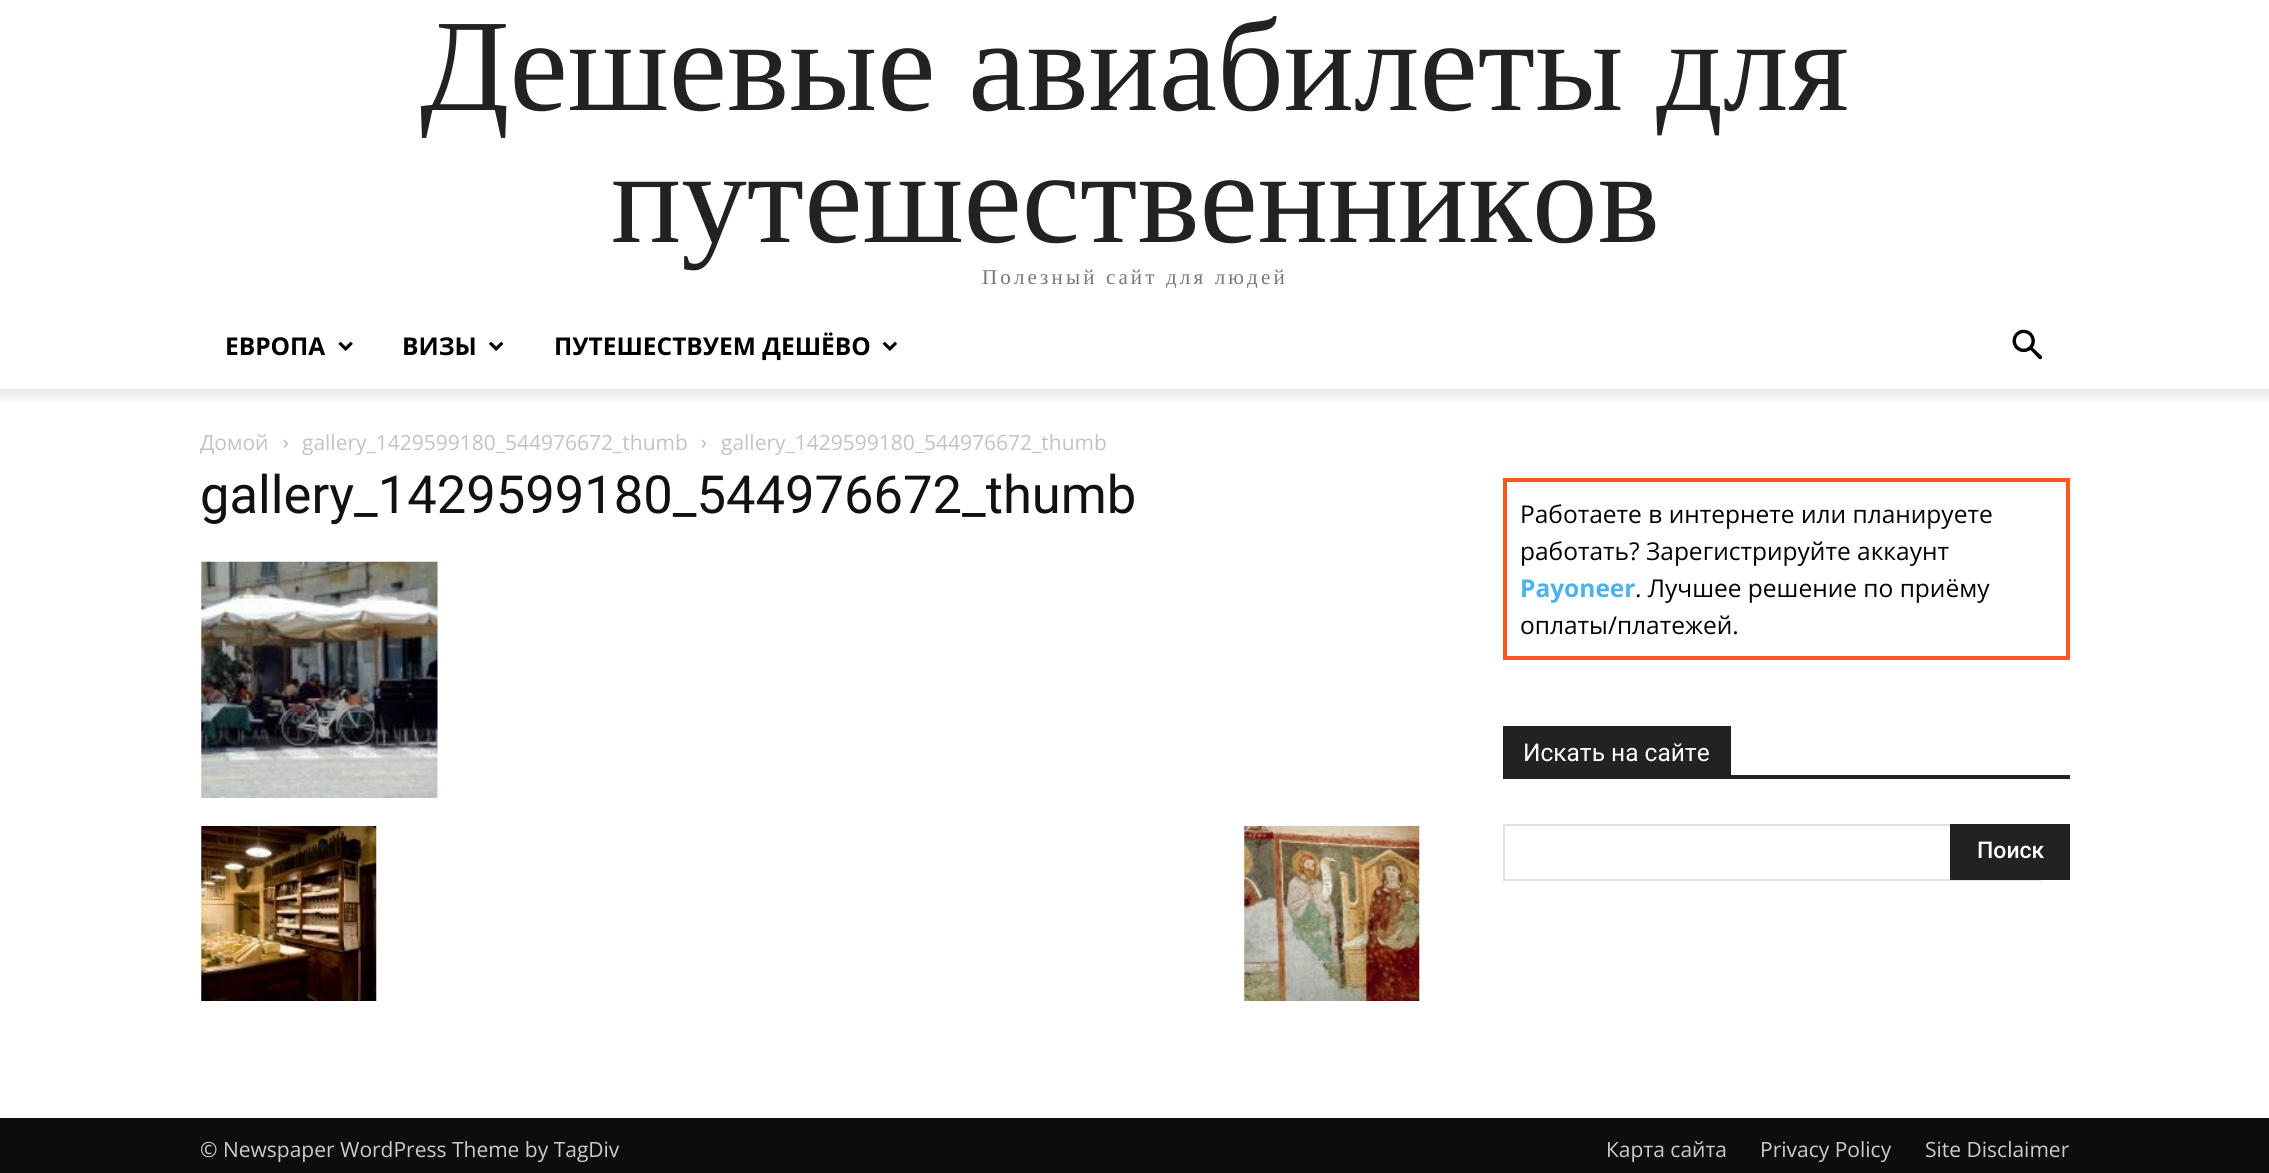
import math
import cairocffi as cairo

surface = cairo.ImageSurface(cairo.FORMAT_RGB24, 2269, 1173)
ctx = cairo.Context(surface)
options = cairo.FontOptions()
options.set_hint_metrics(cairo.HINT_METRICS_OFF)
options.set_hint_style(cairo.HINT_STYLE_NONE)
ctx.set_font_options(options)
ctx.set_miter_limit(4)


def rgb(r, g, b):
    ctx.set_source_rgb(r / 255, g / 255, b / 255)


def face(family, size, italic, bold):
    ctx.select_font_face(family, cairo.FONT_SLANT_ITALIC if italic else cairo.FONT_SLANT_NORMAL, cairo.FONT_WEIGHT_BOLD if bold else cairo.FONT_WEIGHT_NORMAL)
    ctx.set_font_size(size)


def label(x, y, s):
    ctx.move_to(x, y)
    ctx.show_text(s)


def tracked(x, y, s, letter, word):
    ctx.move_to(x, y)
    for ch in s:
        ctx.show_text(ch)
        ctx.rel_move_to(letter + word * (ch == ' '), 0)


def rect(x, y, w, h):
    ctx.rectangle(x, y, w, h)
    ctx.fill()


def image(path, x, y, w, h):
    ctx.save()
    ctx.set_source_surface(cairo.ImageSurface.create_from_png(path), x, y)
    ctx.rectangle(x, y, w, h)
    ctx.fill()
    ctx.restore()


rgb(255, 255, 255)
ctx.paint()
face('Liberation Serif', 131.25, 0, 0)
rgb(34, 34, 34)
label(420, 110, 'Дешевые авиабилеты для')
label(611, 242, 'путешественников')
face('Liberation Serif', 21, 0, 0)
rgb(119, 119, 119)
tracked(982, 284, 'Полезный сайт для людей', 3.15, 0)
face('Open Sans', 24.5, 0, 1)
rgb(0, 0, 0)
label(225, 355, 'ЕВРОПА')
image('image0.png', 338, 341, 15, 10)
label(402, 355, 'ВИЗЫ')
image('image1.png', 489, 341, 15, 10)
label(554, 355, 'ПУТЕШЕСТВУЕМ ДЕШЁВО')
image('image2.png', 882, 341, 15, 10)
image('image3.png', 2012, 329, 31, 31)
image('image4.png', 0, 388, 2269, 15)
face('Open Sans', 21, 0, 0)
rgb(195, 195, 195)
label(200, 450, 'Домой')
image('image5.png', 283, 439, 6, 9)
label(302, 450, 'gallery_1429599180_544976672_thumb')
image('image6.png', 701, 439, 6, 9)
label(721, 450, 'gallery_1429599180_544976672_thumb')
face('Roboto', 52.5, 0, 0)
rgb(17, 17, 17)
label(200, 513, 'gallery_1429599180_544976672_thumb')
image('image7.png', 201, 561, 237, 237)
image('image8.png', 201, 826, 176, 175)
image('image9.png', 1244, 826, 176, 175)
ctx.rectangle(1505, 480, 563, 178)
rgb(255, 87, 34)
ctx.set_line_width(4)
ctx.stroke()
face('Open Sans', 24.5, 0, 0)
rgb(0, 0, 0)
label(1520, 523, 'Работаете в интернете или планируете')
label(1520, 560, 'работать? Зарегистрируйте аккаунт')
face('Open Sans', 24.5, 0, 1)
rgb(77, 178, 236)
label(1520, 597, 'Payoneer')
face('Open Sans', 24.5, 0, 0)
rgb(0, 0, 0)
label(1635, 597, '. Лучшее решение по приёму')
label(1520, 634, 'оплаты/платежей.')
rgb(34, 34, 34)
rect(1503, 775, 567, 4)
rect(1503, 726, 228, 49)
face('Roboto', 24.5, 0, 0)
rgb(255, 255, 255)
label(1523, 761, 'Искать на сайте')
rgb(225, 225, 225)
rect(1503, 824, 447, 2)
rect(1503, 879, 538, 2)
rect(1503, 824, 2, 56)
rgb(34, 34, 34)
rect(1950, 824, 120, 56)
face('Roboto Medium', 23, 0, 0)
rgb(255, 255, 255)
label(1977, 858, 'Поиск')
rgb(13, 13, 13)
rect(0, 1118, 2269, 55)
face('Open Sans', 21, 0, 0)
rgb(204, 204, 204)
label(200, 1157, '© Newspaper WordPress Theme by TagDiv')
label(1606, 1157, 'Карта сайта')
label(1760, 1157, 'Privacy Policy')
label(1925, 1157, 'Site Disclaimer')
surface.write_to_png('render.png')
